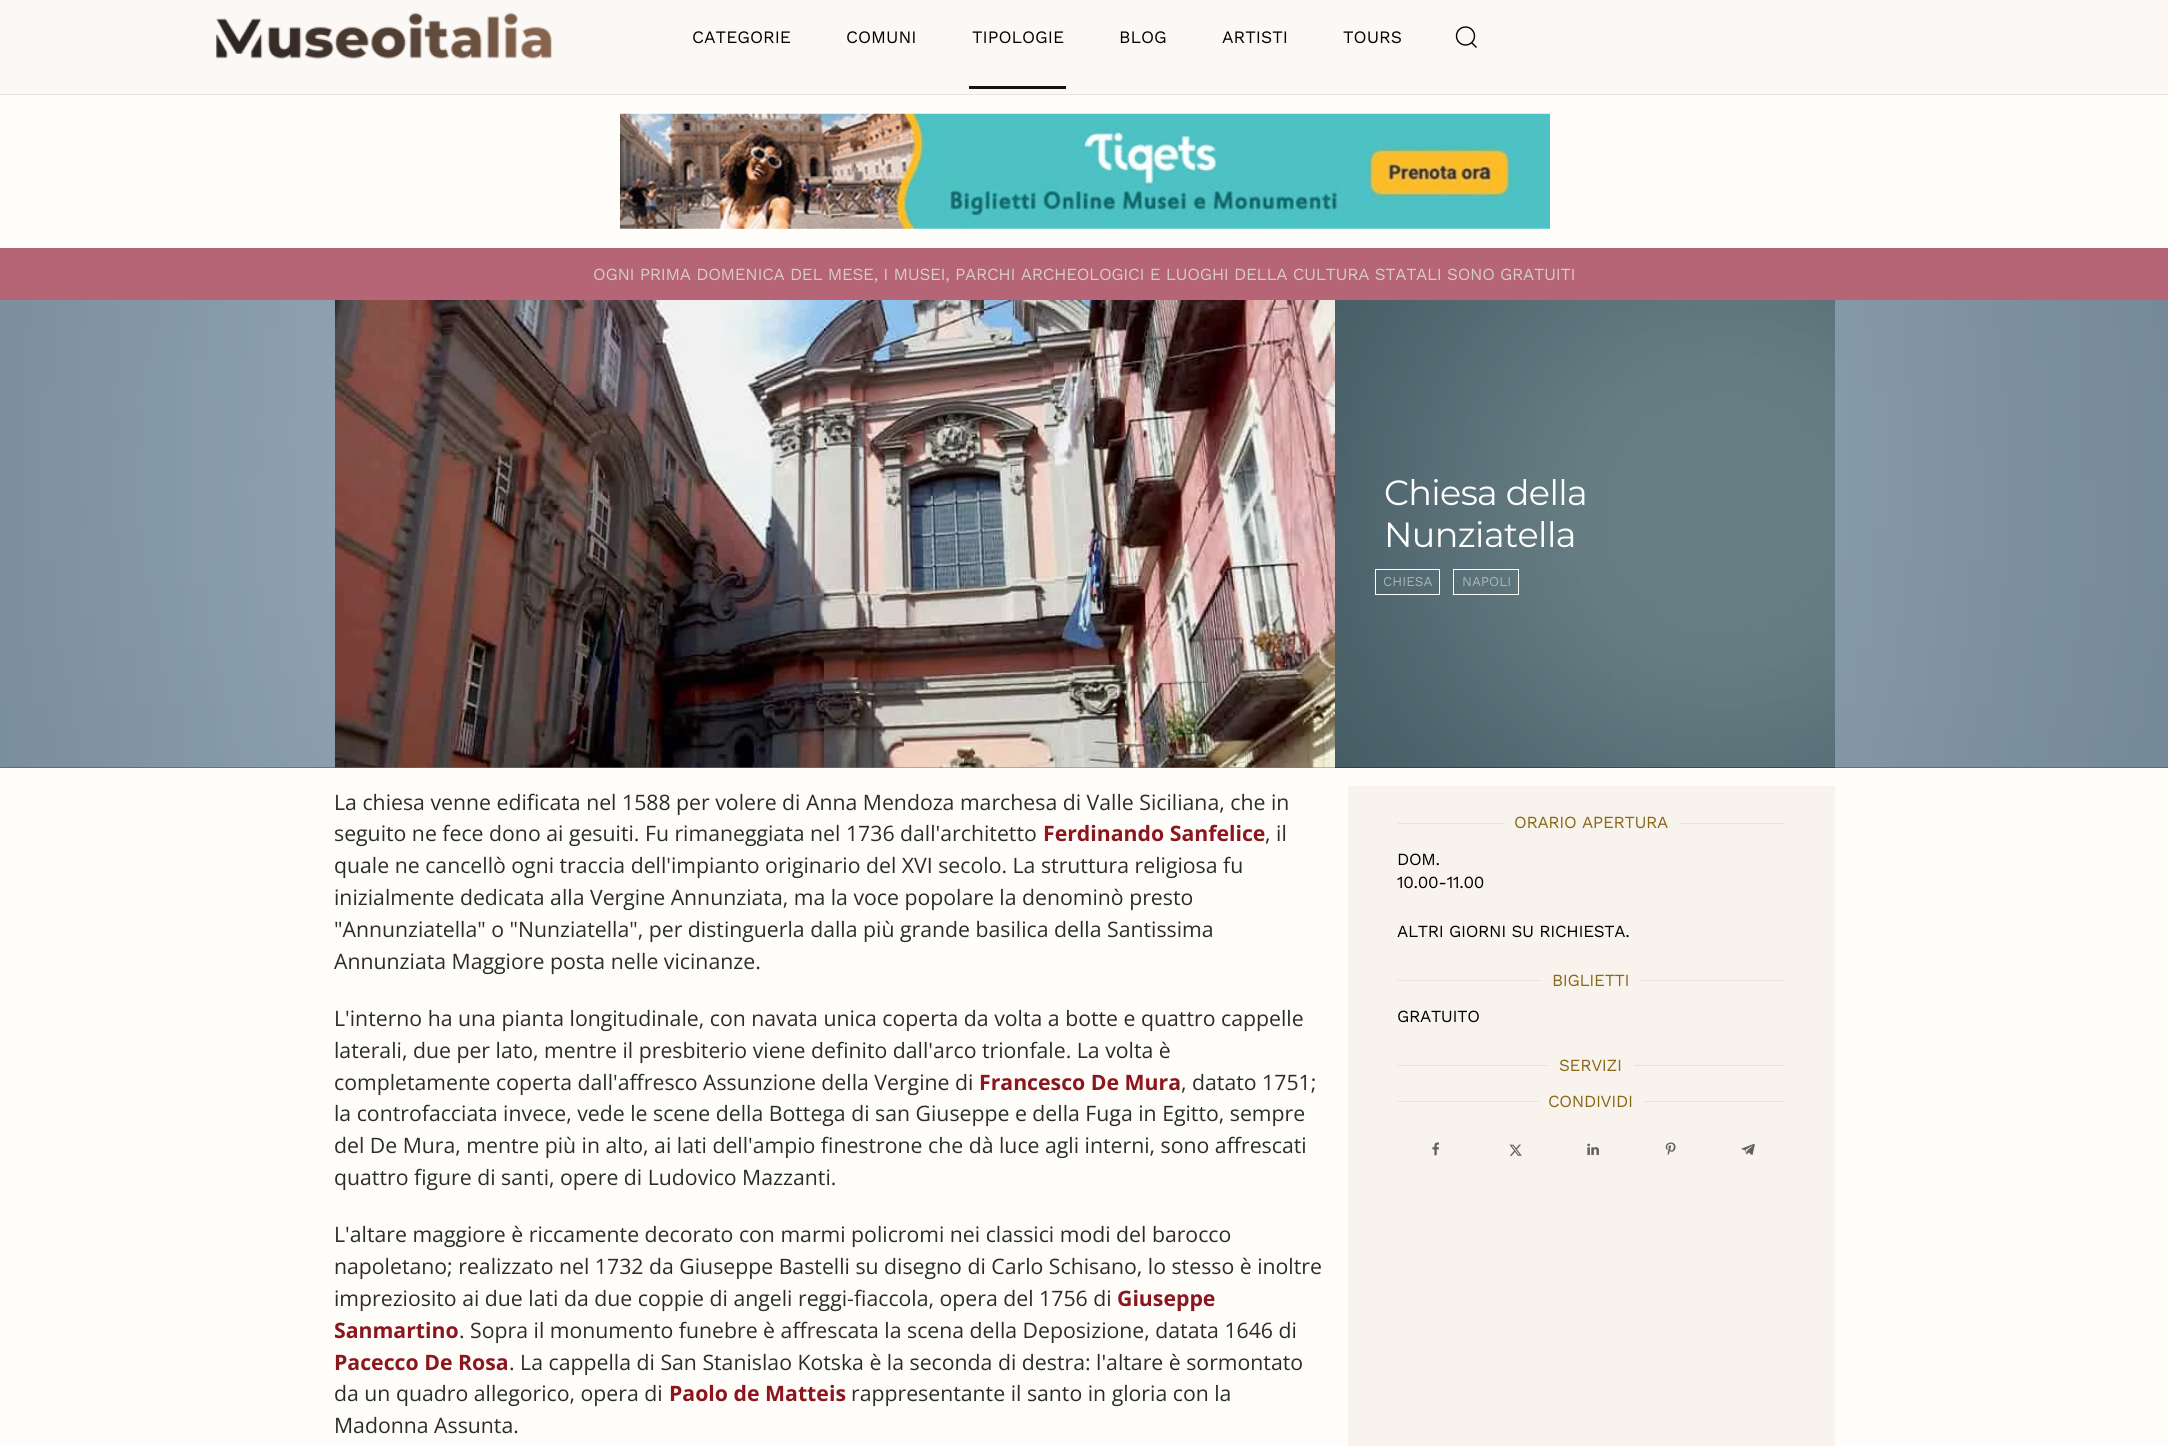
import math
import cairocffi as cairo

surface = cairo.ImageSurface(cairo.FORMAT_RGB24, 2168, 1446)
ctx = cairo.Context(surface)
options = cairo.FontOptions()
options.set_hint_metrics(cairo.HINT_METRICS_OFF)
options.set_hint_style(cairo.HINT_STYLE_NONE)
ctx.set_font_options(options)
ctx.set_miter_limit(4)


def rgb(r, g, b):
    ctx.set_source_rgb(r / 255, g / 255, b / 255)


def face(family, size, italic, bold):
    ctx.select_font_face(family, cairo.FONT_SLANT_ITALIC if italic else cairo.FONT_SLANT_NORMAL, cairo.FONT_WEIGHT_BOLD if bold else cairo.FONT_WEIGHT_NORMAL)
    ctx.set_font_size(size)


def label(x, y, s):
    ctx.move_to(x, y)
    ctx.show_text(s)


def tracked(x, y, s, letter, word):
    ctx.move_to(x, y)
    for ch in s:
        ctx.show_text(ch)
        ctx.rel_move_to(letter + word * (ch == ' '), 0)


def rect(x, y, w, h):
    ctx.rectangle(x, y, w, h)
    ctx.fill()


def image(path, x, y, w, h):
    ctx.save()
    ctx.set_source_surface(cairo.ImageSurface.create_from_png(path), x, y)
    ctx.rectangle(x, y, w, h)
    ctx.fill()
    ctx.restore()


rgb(255, 253, 250)
ctx.paint()
rgb(252, 248, 245)
rect(0, 0, 2168, 94)
rgb(227, 227, 227)
rect(0, 94, 2168, 1)
image('image0.png', 216, 12, 336, 47)
face('Work Sans', 17.5, 0, 0)
rgb(0, 0, 0)
label(692, 43, 'CATEGORIE')
label(846, 43, 'COMUNI')
label(972, 43, 'TIPOLOGIE')
rgb(18, 19, 20)
rect(969, 86, 97, 3)
rgb(0, 0, 0)
label(1119, 43, 'BLOG')
label(1222, 43, 'ARTISTI')
label(1343, 43, 'TOURS')
ctx.new_path()
ctx.arc(1465.5, 36, 9, 0, 2 * math.pi)
ctx.set_line_width(1.4)
ctx.stroke()
ctx.new_path()
ctx.move_to(1471.5, 42.5)
ctx.line_to(1476.5, 47.5)
ctx.close_path()
ctx.stroke()
image('image1.png', 620, 113, 930, 116)
rgb(181, 101, 118)
rect(0, 248, 2168, 52)
face('Work Sans', 17, 0, 0)
rgb(214, 204, 194)
tracked(593, 280, 'OGNI PRIMA DOMENICA DEL MESE, I MUSEI, PARCHI ARCHEOLOGICI E LUOGHI DELLA CULTURA STATALI SONO GRATUITI', -0.31, 0)
rgb(97, 60, 89)
rect(0, 767, 2168, 1)
image('image2.png', 0, 300, 2168, 468)
image('image3.png', 335, 300, 1000, 468)
rgb(18, 19, 20)
rect(1335, 767, 500, 1)
image('image4.png', 1335, 300, 500, 468)
ctx.set_source_rgba(0.047, 0.192, 0.239, 0.62)
rect(1335, 300, 500, 468)
face('Montserrat', 35, 0, 0)
rgb(255, 255, 255)
tracked(1384, 505, 'Chiesa della', -0.6, 0)
tracked(1384, 547, 'Nunziatella', -0.6, 0)
ctx.rectangle(1375.5, 569.5, 64, 25)
rgb(255, 255, 250)
ctx.set_line_width(1)
ctx.stroke()
face('Work Sans', 13.5, 0, 0)
rgb(169, 181, 185)
label(1383, 586, 'CHIESA')
ctx.rectangle(1453.5, 569.5, 65, 25)
rgb(255, 255, 250)
ctx.stroke()
rgb(169, 181, 185)
label(1462, 586, 'NAPOLI')
face('Open Sans', 21.25, 0, 0)
rgb(44, 44, 44)
label(334, 810, 'La chiesa venne edificata nel 1588 per volere di Anna Mendoza marchesa di Valle Siciliana, che in')
label(334, 841, 'seguito ne fece dono ai gesuiti. Fu rimaneggiata nel 1736 dall\'architetto')
face('Open Sans', 21.25, 0, 1)
rgb(140, 22, 30)
label(1043, 841, 'Ferdinando Sanfelice')
face('Open Sans', 21.25, 0, 0)
rgb(44, 44, 44)
label(1265, 841, ', il')
label(334, 873, 'quale ne cancellò ogni traccia dell\'impianto originario del XVI secolo. La struttura religiosa fu')
label(334, 905, 'inizialmente dedicata alla Vergine Annunziata, ma la voce popolare la denominò presto')
label(334, 937, '"Annunziatella" o "Nunziatella", per distinguerla dalla più grande basilica della Santissima')
label(334, 969, 'Annunziata Maggiore posta nelle vicinanze.')
label(334, 1026, 'L\'interno ha una pianta longitudinale, con navata unica coperta da volta a botte e quattro cappelle')
label(334, 1058, 'laterali, due per lato, mentre il presbiterio viene definito dall\'arco trionfale. La volta è')
label(334, 1090, 'completamente coperta dall\'affresco Assunzione della Vergine di')
face('Open Sans', 21.25, 0, 1)
rgb(140, 22, 30)
label(979, 1090, 'Francesco De Mura')
face('Open Sans', 21.25, 0, 0)
rgb(44, 44, 44)
label(1181, 1090, ', datato 1751;')
label(334, 1121, 'la controfacciata invece, vede le scene della Bottega di san Giuseppe e della Fuga in Egitto, sempre')
label(334, 1153, 'del De Mura, mentre più in alto, ai lati dell\'ampio finestrone che dà luce agli interni, sono affrescati')
label(334, 1185, 'quattro figure di santi, opere di Ludovico Mazzanti.')
label(334, 1242, 'L\'altare maggiore è riccamente decorato con marmi policromi nei classici modi del barocco')
label(334, 1274, 'napoletano; realizzato nel 1732 da Giuseppe Bastelli su disegno di Carlo Schisano, lo stesso è inoltre')
label(334, 1306, 'impreziosito ai due lati da due coppie di angeli reggi-fiaccola, opera del 1756 di')
face('Open Sans', 21.25, 0, 1)
rgb(140, 22, 30)
label(1117, 1306, 'Giuseppe')
label(334, 1338, 'Sanmartino')
face('Open Sans', 21.25, 0, 0)
rgb(44, 44, 44)
label(459, 1338, '. Sopra il monumento funebre è affrescata la scena della Deposizione, datata 1646 di')
face('Open Sans', 21.25, 0, 1)
rgb(140, 22, 30)
label(334, 1370, 'Pacecco De Rosa')
face('Open Sans', 21.25, 0, 0)
rgb(44, 44, 44)
label(509, 1370, '. La cappella di San Stanislao Kotska è la seconda di destra: l\'altare è sormontato')
label(334, 1401, 'da un quadro allegorico, opera di')
face('Open Sans', 21.25, 0, 1)
rgb(140, 22, 30)
label(669, 1401, 'Paolo de Matteis')
face('Open Sans', 21.25, 0, 0)
rgb(44, 44, 44)
label(851, 1401, 'rappresentante il santo in gloria con la')
label(334, 1433, 'Madonna Assunta.')
rgb(248, 244, 237)
rect(1348, 786, 487, 660)
rgb(227, 227, 227)
rect(1398, 823, 105, 1)
face('Work Sans', 17, 0, 0)
rgb(135, 104, 25)
tracked(1514, 828, 'ORARIO APERTURA', -0.31, 0)
rgb(227, 227, 227)
rect(1679, 823, 106, 1)
rgb(0, 0, 0)
tracked(1397, 865, 'DOM.', -0.31, 0)
tracked(1397, 888, '10.00-11.00', -0.31, 0)
tracked(1397, 937, 'ALTRI GIORNI SU RICHIESTA.', -0.31, 0)
rgb(227, 227, 227)
rect(1398, 980, 143, 1)
rgb(135, 104, 25)
tracked(1552, 986, 'BIGLIETTI', -0.31, 0)
rgb(227, 227, 227)
rect(1640, 980, 145, 1)
rgb(0, 0, 0)
tracked(1397, 1022, 'GRATUITO', -0.31, 0)
rgb(227, 227, 227)
rect(1398, 1065, 150, 1)
rgb(135, 104, 25)
tracked(1559, 1071, 'SERVIZI', -0.31, 0)
rgb(227, 227, 227)
rect(1634, 1065, 151, 1)
rect(1398, 1101, 140, 1)
rgb(135, 104, 25)
tracked(1548, 1107, 'CONDIVIDI', -0.31, 0)
rgb(227, 227, 227)
rect(1644, 1101, 141, 1)
image('image5.png', 1432, 1142, 8, 14)
image('image6.png', 1509, 1144, 13, 12)
image('image7.png', 1587, 1143, 12, 12)
image('image8.png', 1665, 1142, 11, 14)
image('image9.png', 1741, 1143, 14, 12)
surface.write_to_png('render.png')
